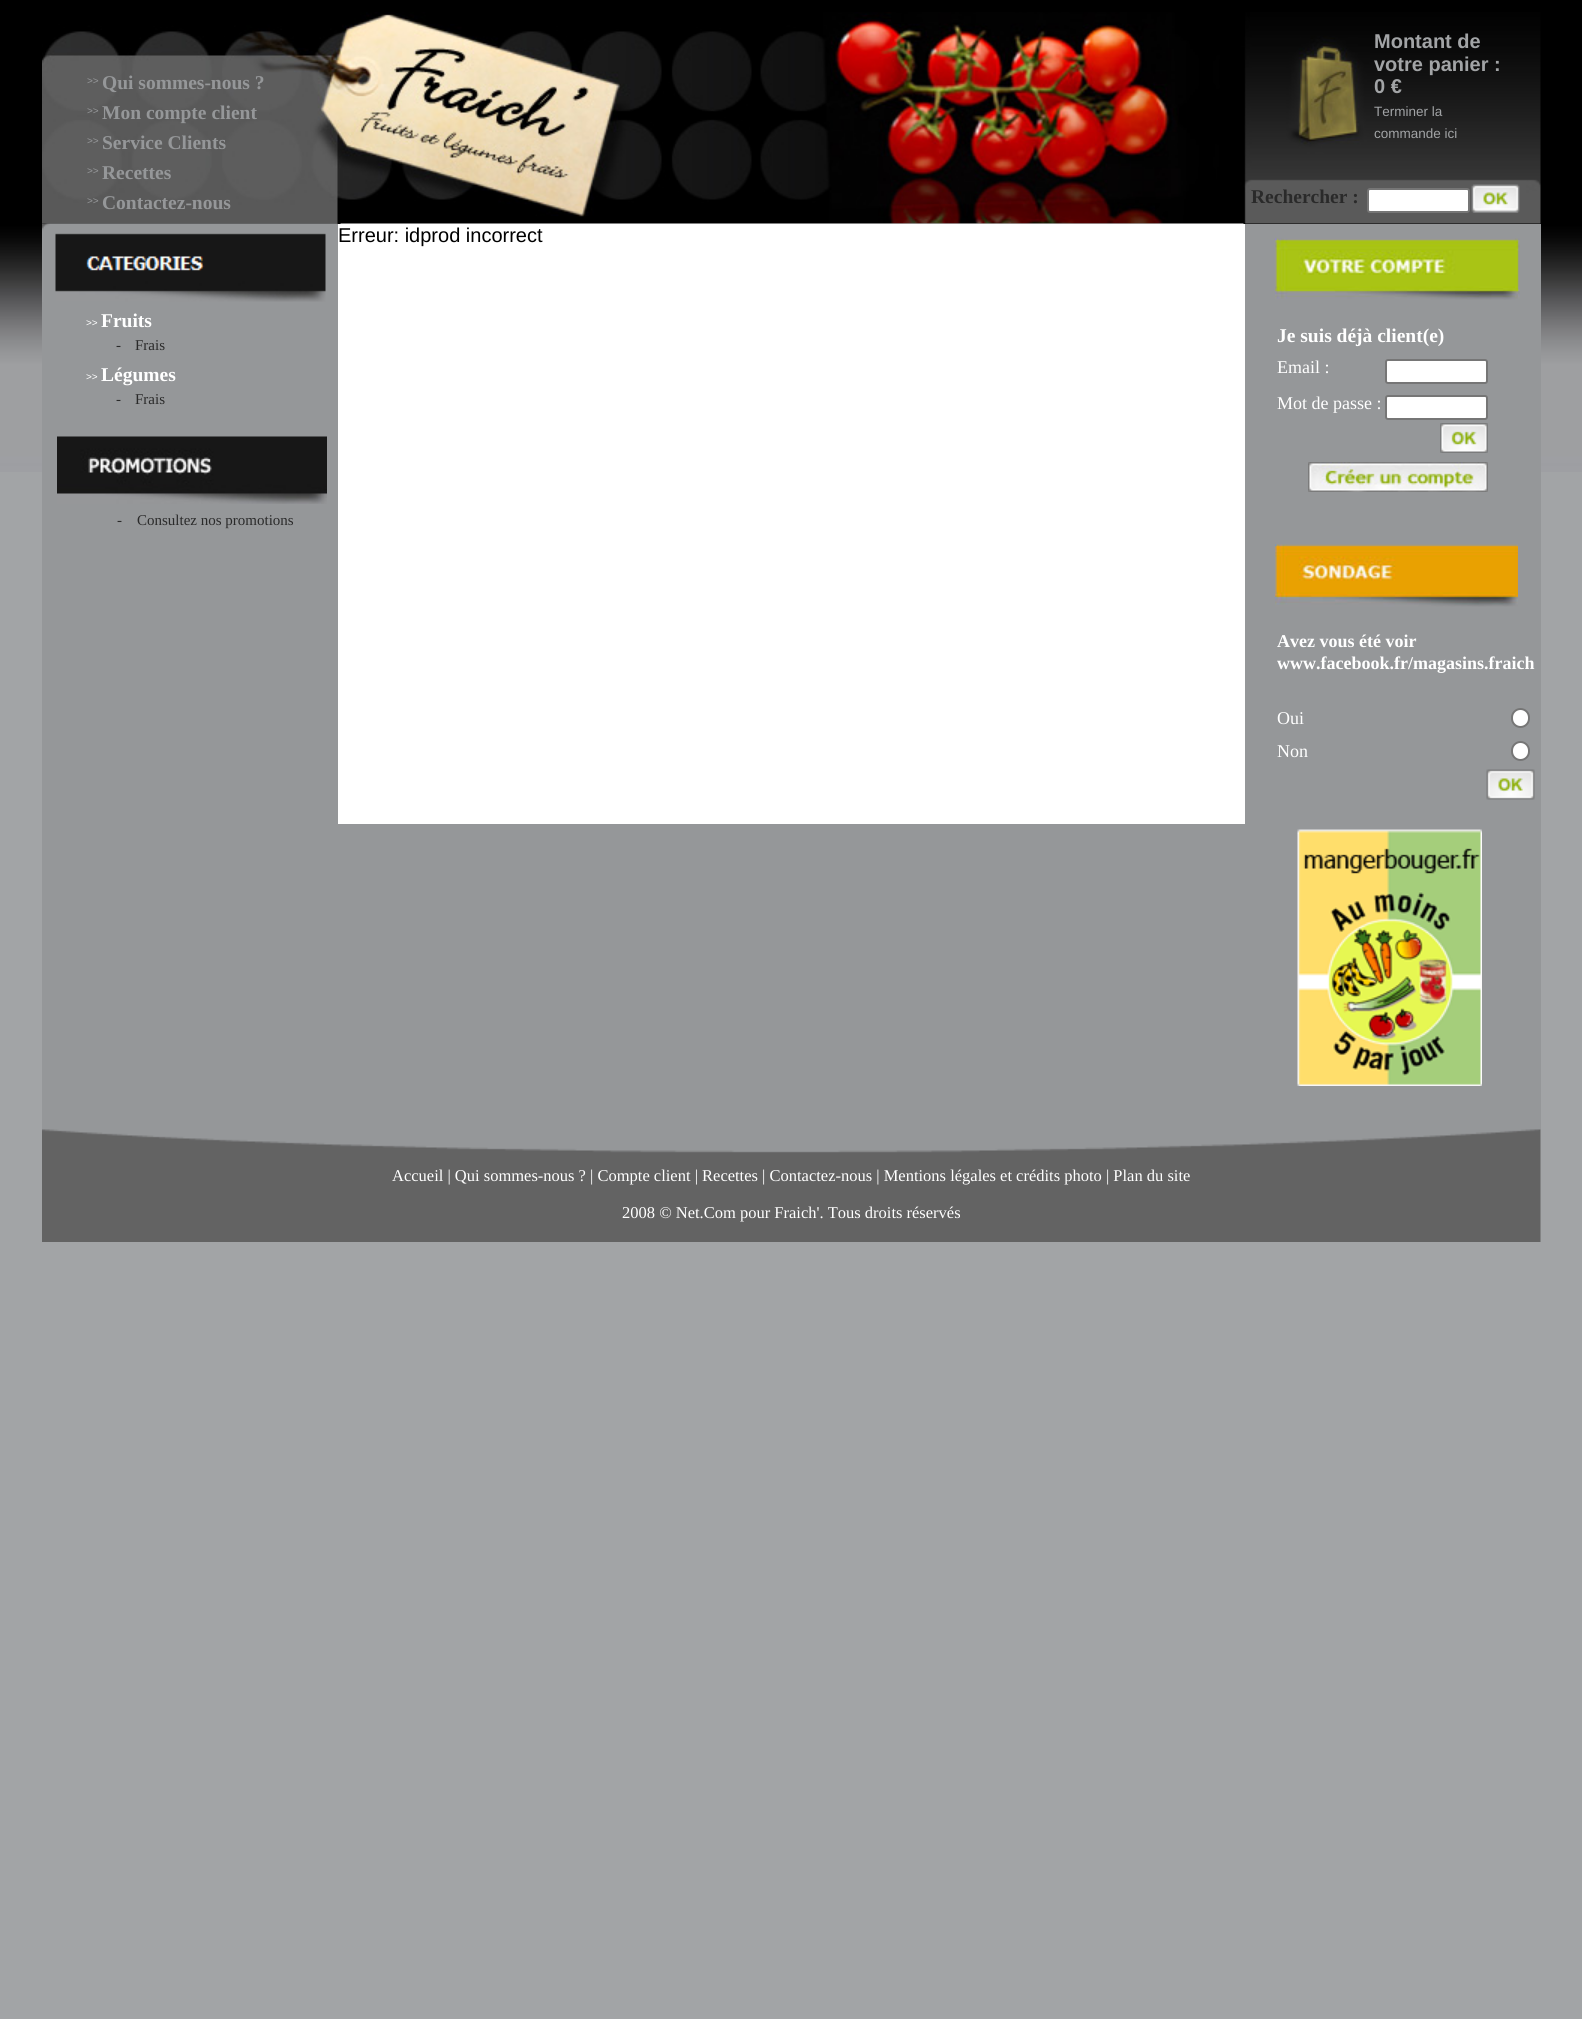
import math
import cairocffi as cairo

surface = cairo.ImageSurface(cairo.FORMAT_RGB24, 1582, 2019)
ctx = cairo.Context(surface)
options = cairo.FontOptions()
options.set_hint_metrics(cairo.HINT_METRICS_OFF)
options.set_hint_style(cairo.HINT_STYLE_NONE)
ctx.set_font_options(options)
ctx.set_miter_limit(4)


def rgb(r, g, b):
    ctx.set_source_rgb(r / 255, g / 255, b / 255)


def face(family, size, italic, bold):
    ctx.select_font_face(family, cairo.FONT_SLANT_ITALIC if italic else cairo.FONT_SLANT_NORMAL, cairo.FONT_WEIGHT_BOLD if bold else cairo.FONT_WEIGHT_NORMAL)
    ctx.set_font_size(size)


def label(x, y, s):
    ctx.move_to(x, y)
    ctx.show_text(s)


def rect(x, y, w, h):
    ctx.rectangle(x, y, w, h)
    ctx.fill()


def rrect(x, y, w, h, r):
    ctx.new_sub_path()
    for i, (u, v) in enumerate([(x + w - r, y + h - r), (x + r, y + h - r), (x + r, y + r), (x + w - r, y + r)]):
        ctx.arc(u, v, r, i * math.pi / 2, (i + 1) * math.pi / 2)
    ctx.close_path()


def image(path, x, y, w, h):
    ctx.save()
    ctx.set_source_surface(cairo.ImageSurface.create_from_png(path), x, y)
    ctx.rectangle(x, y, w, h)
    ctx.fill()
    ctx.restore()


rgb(162, 164, 166)
ctx.paint()
image('image0.png', 0, 0, 1582, 472)
image('image1.png', 42, 12, 710, 212)
face('Liberation Sans', 10, 0, 0)
rgb(149, 151, 153)
label(87, 84, '>>')
face('Liberation Serif', 19.5, 0, 1)
label(102, 89, 'Qui sommes-nous ?')
face('Liberation Sans', 10, 0, 0)
label(87, 114, '>>')
face('Liberation Serif', 19.5, 0, 1)
label(102, 119, 'Mon compte client')
face('Liberation Sans', 10, 0, 0)
label(87, 144, '>>')
face('Liberation Serif', 19.5, 0, 1)
label(102, 149, 'Service Clients')
face('Liberation Sans', 10, 0, 0)
label(87, 174, '>>')
face('Liberation Serif', 19.5, 0, 1)
label(102, 179, 'Recettes')
face('Liberation Sans', 10, 0, 0)
label(87, 204, '>>')
face('Liberation Serif', 19.5, 0, 1)
label(102, 209, 'Contactez-nous')
image('image2.png', 760, 12, 781, 212)
face('Liberation Sans', 20, 0, 1)
rgb(162, 164, 166)
label(1374, 48, 'Montant de')
label(1374, 71, 'votre panier :')
label(1374, 93, '0 €')
face('Liberation Sans', 13.5, 0, 0)
label(1374, 116, 'Terminer la')
label(1374, 138, 'commande ici')
face('Liberation Serif', 19.5, 0, 1)
rgb(42, 42, 42)
label(1251, 203, 'Rechercher :')
rgb(255, 255, 255)
rrect(1368, 189, 101, 23, 2)
ctx.fill_preserve()
rgb(118, 118, 118)
ctx.stroke()
image('image3.png', 1471, 184, 49, 29)
rgb(149, 151, 153)
rect(42, 224, 1499, 906)
rgb(255, 255, 255)
rect(338, 224, 907, 600)
image('image4.png', 340, 223, 904, 1)
face('Liberation Sans', 20, 0, 0)
rgb(0, 0, 0)
label(338, 242, 'Erreur: idprod incorrect')
image('image5.png', 42, 223, 296, 79)
face('Liberation Sans', 10, 0, 0)
rgb(255, 255, 255)
label(86, 326, '>>')
face('Liberation Serif', 19.5, 0, 1)
label(101, 327, 'Fruits')
face('Liberation Serif', 15, 0, 0)
rgb(42, 42, 42)
label(116, 350, '-')
label(135, 350, 'Frais')
face('Liberation Sans', 10, 0, 0)
rgb(255, 255, 255)
label(86, 380, '>>')
face('Liberation Serif', 19.5, 0, 1)
label(101, 381, 'Légumes')
face('Liberation Serif', 15, 0, 0)
rgb(42, 42, 42)
label(116, 404, '-')
label(135, 404, 'Frais')
image('image6.png', 57, 436, 270, 68)
label(117, 525, '-')
label(137, 525, 'Consultez nos promotions')
image('image7.png', 1275, 238, 245, 62)
face('Liberation Serif', 19.5, 0, 1)
rgb(255, 255, 255)
label(1277, 342, 'Je suis déjà client(e)')
face('Liberation Serif', 18, 0, 0)
label(1277, 373, 'Email :')
rrect(1386, 360, 101, 23, 2)
ctx.fill_preserve()
rgb(118, 118, 118)
ctx.stroke()
rgb(255, 255, 255)
label(1277, 409, 'Mot de passe :')
rrect(1386, 396, 101, 23, 2)
ctx.fill_preserve()
rgb(118, 118, 118)
ctx.stroke()
image('image8.png', 1440, 423, 48, 30)
image('image9.png', 1308, 462, 180, 30)
image('image10.png', 1275, 544, 243, 63)
face('Liberation Serif', 18, 0, 1)
rgb(255, 255, 255)
label(1277, 647, 'Avez vous été voir')
label(1277, 669, 'www.facebook.fr/magasins.fraich')
face('Liberation Serif', 18, 0, 0)
label(1277, 724, 'Oui')
rrect(1512, 709, 17, 18, 8.5)
ctx.fill_preserve()
rgb(118, 118, 118)
ctx.stroke()
rgb(255, 255, 255)
label(1277, 757, 'Non')
rrect(1512, 742, 17, 18, 8.5)
ctx.fill_preserve()
rgb(118, 118, 118)
ctx.stroke()
image('image11.png', 1486, 769, 49, 31)
image('image12.png', 1297, 829, 185, 257)
image('image13.png', 42, 1129, 1499, 113)
face('Liberation Serif', 16.5, 0, 0)
rgb(255, 255, 255)
label(392, 1181, 'Accueil | Qui sommes-nous ? | Compte client | Recettes | Contactez-nous | Mentions légales et crédits photo | Plan du site')
label(622, 1218, '2008 © Net.Com pour Fraich\'. Tous droits réservés')
surface.write_to_png('render.png')
